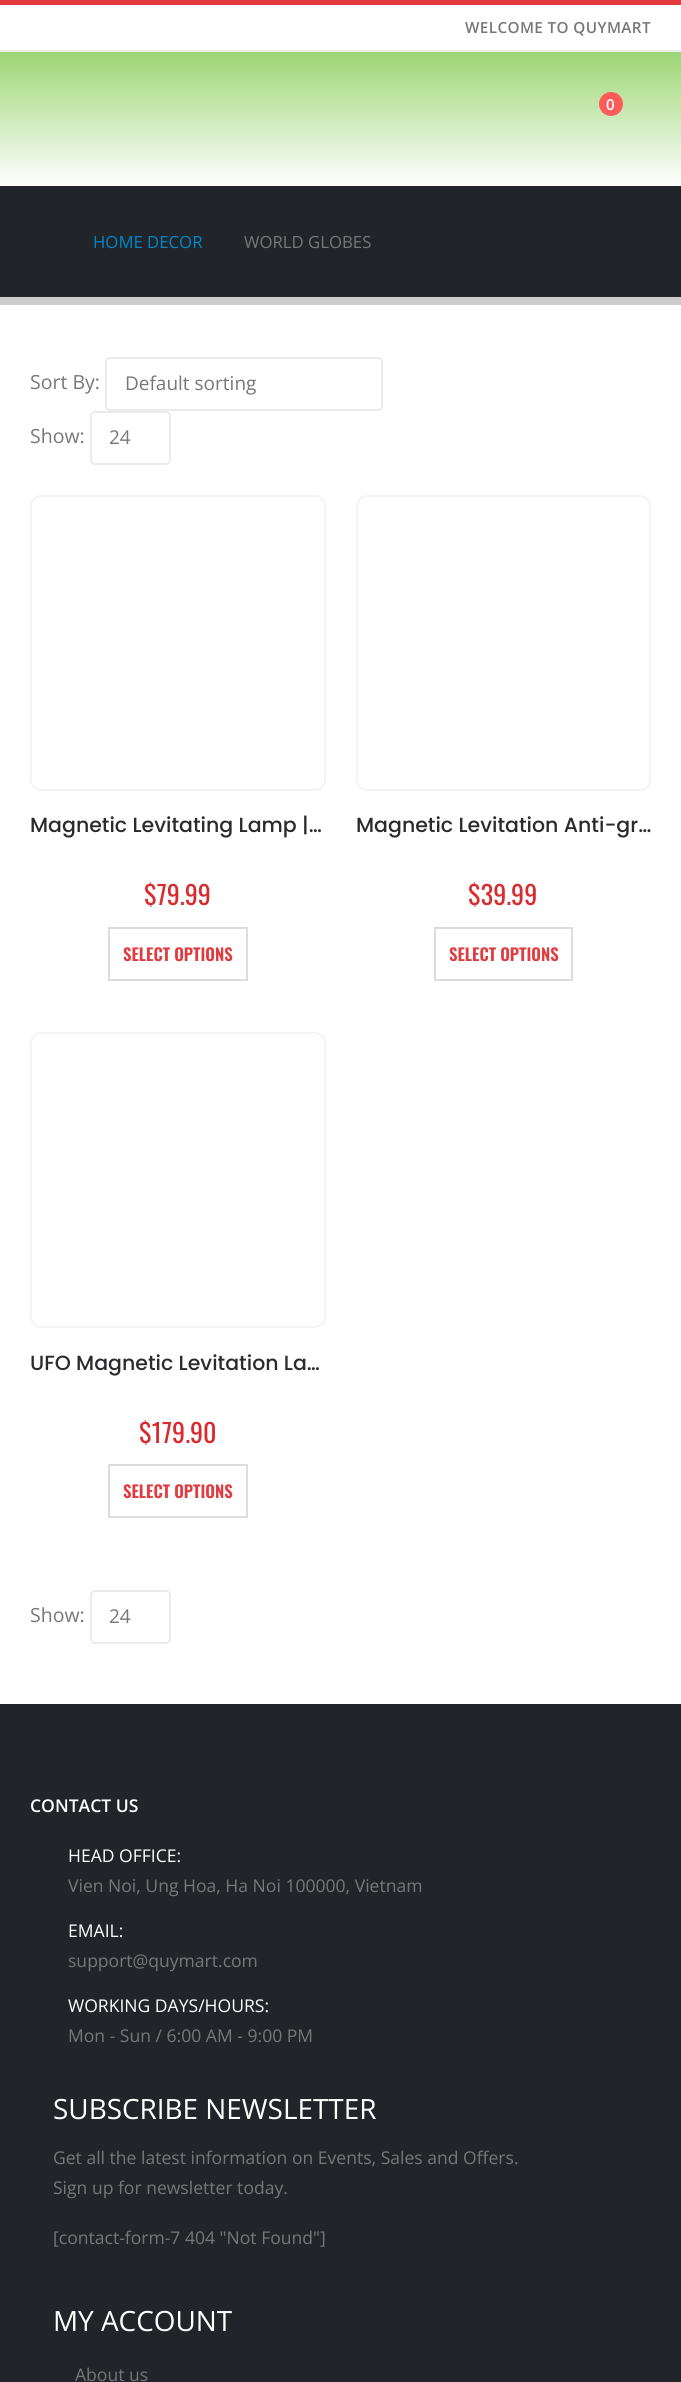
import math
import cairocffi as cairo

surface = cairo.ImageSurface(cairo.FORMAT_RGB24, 681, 2382)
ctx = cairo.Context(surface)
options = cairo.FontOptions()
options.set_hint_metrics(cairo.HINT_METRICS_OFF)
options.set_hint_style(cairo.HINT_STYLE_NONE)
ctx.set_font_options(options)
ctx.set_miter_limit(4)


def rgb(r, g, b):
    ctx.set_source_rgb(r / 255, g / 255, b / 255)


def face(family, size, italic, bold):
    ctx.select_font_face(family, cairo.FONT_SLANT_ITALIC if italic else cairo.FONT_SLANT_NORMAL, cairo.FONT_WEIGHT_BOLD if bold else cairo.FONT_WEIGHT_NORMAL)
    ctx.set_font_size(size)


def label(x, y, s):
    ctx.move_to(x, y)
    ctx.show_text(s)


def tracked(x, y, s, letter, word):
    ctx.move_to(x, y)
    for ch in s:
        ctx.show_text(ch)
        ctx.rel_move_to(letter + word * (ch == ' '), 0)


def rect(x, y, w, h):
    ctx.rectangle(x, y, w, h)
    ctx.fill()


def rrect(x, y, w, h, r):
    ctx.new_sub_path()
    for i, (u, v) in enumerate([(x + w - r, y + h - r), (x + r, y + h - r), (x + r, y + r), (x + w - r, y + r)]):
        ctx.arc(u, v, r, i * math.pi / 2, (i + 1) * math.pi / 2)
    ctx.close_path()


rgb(255, 255, 255)
ctx.paint()
rgb(225, 59, 63)
rect(0, 0, 681, 5)
rgb(237, 237, 237)
rect(0, 50, 681, 2)
face('Open Sans SemiBold', 15.25, 0, 0)
rgb(119, 119, 119)
tracked(465, 33, 'WELCOME TO QUYMART', 0.4, 0)
gradient = cairo.LinearGradient(341, 51, 341, 186)
gradient.add_color_stop_rgba(0, 0.612, 0.839, 0.451, 1)
gradient.add_color_stop_rgba(1, 1, 1, 1, 1)
ctx.set_source(gradient)
rect(0, 52, 681, 132)
rgb(255, 91, 91)
ctx.new_path()
ctx.arc(611, 104, 12, 0, 2 * math.pi)
ctx.fill()
face('Open Sans SemiBold', 15, 0, 0)
rgb(255, 255, 255)
label(606, 110, '0')
rgb(33, 37, 41)
rect(0, 186, 681, 111)
rgb(204, 204, 204)
rect(0, 297, 681, 8)
face('Open Sans', 16.75, 0, 0)
rgb(0, 136, 204)
label(93, 248, 'HOME DECOR')
rgb(119, 119, 119)
label(244, 248, 'WORLD GLOBES')
face('Open Sans', 19.5, 0, 0)
label(30, 389, 'Sort By:')
rrect(106, 358, 276, 52, 4)
rgb(235, 235, 235)
ctx.stroke()
face('Open Sans', 19, 0, 0)
rgb(119, 119, 119)
label(125, 390, 'Default sorting')
face('Open Sans', 19.5, 0, 0)
label(30, 443, 'Show:')
rrect(91, 412, 79, 52, 4)
rgb(235, 235, 235)
ctx.stroke()
face('Open Sans', 19, 0, 0)
rgb(119, 119, 119)
label(109, 444, '24')
rrect(31, 496, 294, 294, 10)
rgb(244, 244, 244)
ctx.stroke()
face('Poppins Medium', 20.5, 0, 0)
rgb(43, 43, 45)
label(30, 832, 'Magnetic Levitating Lamp |…')
face('Oswald', 26, 0, 0)
rgb(217, 42, 46)
label(144, 905, '$79.99')
ctx.rectangle(109, 928, 138, 52)
rgb(221, 221, 221)
ctx.stroke()
face('Oswald SemiBold', 16.75, 0, 0)
rgb(225, 59, 63)
label(123, 961, 'SELECT OPTIONS')
rrect(357, 496, 293, 294, 10)
rgb(244, 244, 244)
ctx.stroke()
face('Poppins Medium', 20.5, 0, 0)
rgb(43, 43, 45)
label(356, 832, 'Magnetic Levitation Anti-gr…')
face('Oswald', 26, 0, 0)
rgb(217, 42, 46)
label(468, 905, '$39.99')
ctx.rectangle(435, 928, 137, 52)
rgb(221, 221, 221)
ctx.stroke()
face('Oswald SemiBold', 16.75, 0, 0)
rgb(225, 59, 63)
label(449, 961, 'SELECT OPTIONS')
rrect(31, 1033, 294, 294, 10)
rgb(244, 244, 244)
ctx.stroke()
face('Poppins Medium', 20.5, 0, 0)
rgb(43, 43, 45)
label(30, 1370, 'UFO Magnetic Levitation La…')
face('Oswald', 26, 0, 0)
rgb(217, 42, 46)
label(139, 1443, '$179.90')
ctx.rectangle(109, 1465, 138, 52)
rgb(221, 221, 221)
ctx.stroke()
face('Oswald SemiBold', 16.75, 0, 0)
rgb(225, 59, 63)
label(123, 1498, 'SELECT OPTIONS')
face('Open Sans', 19.5, 0, 0)
rgb(119, 119, 119)
label(30, 1622, 'Show:')
rrect(91, 1591, 79, 52, 4)
rgb(235, 235, 235)
ctx.stroke()
face('Open Sans', 19, 0, 0)
rgb(119, 119, 119)
label(109, 1623, '24')
rgb(33, 37, 41)
rect(0, 1704, 681, 678)
face('Open Sans SemiBold', 17.55, 0, 0)
rgb(255, 255, 255)
label(30, 1812, 'CONTACT US')
face('Open Sans', 17.55, 0, 0)
label(68, 1862, 'HEAD OFFICE:')
rgb(119, 119, 119)
label(68, 1892, 'Vien Noi, Ung Hoa, Ha Noi 100000, Vietnam')
rgb(255, 255, 255)
label(68, 1937, 'EMAIL:')
rgb(119, 119, 119)
label(68, 1967, 'support@quymart.com')
rgb(255, 255, 255)
label(68, 2012, 'WORKING DAYS/HOURS:')
rgb(119, 119, 119)
label(68, 2042, 'Mon - Sun / 6:00 AM - 9:00 PM')
face('Open Sans', 27.9, 0, 0)
rgb(255, 255, 255)
label(53, 2119, 'SUBSCRIBE NEWSLETTER')
face('Open Sans', 17.55, 0, 0)
rgb(119, 119, 119)
label(53, 2164, 'Get all the latest information on Events, Sales and Offers.')
label(53, 2194, 'Sign up for newsletter today.')
label(53, 2244, '[contact-form-7 404 "Not Found"]')
face('Open Sans', 27.9, 0, 0)
rgb(255, 255, 255)
label(53, 2331, 'MY ACCOUNT')
face('Open Sans', 17.55, 0, 0)
rgb(119, 119, 119)
label(75, 2381, 'About us')
surface.write_to_png('render.png')
